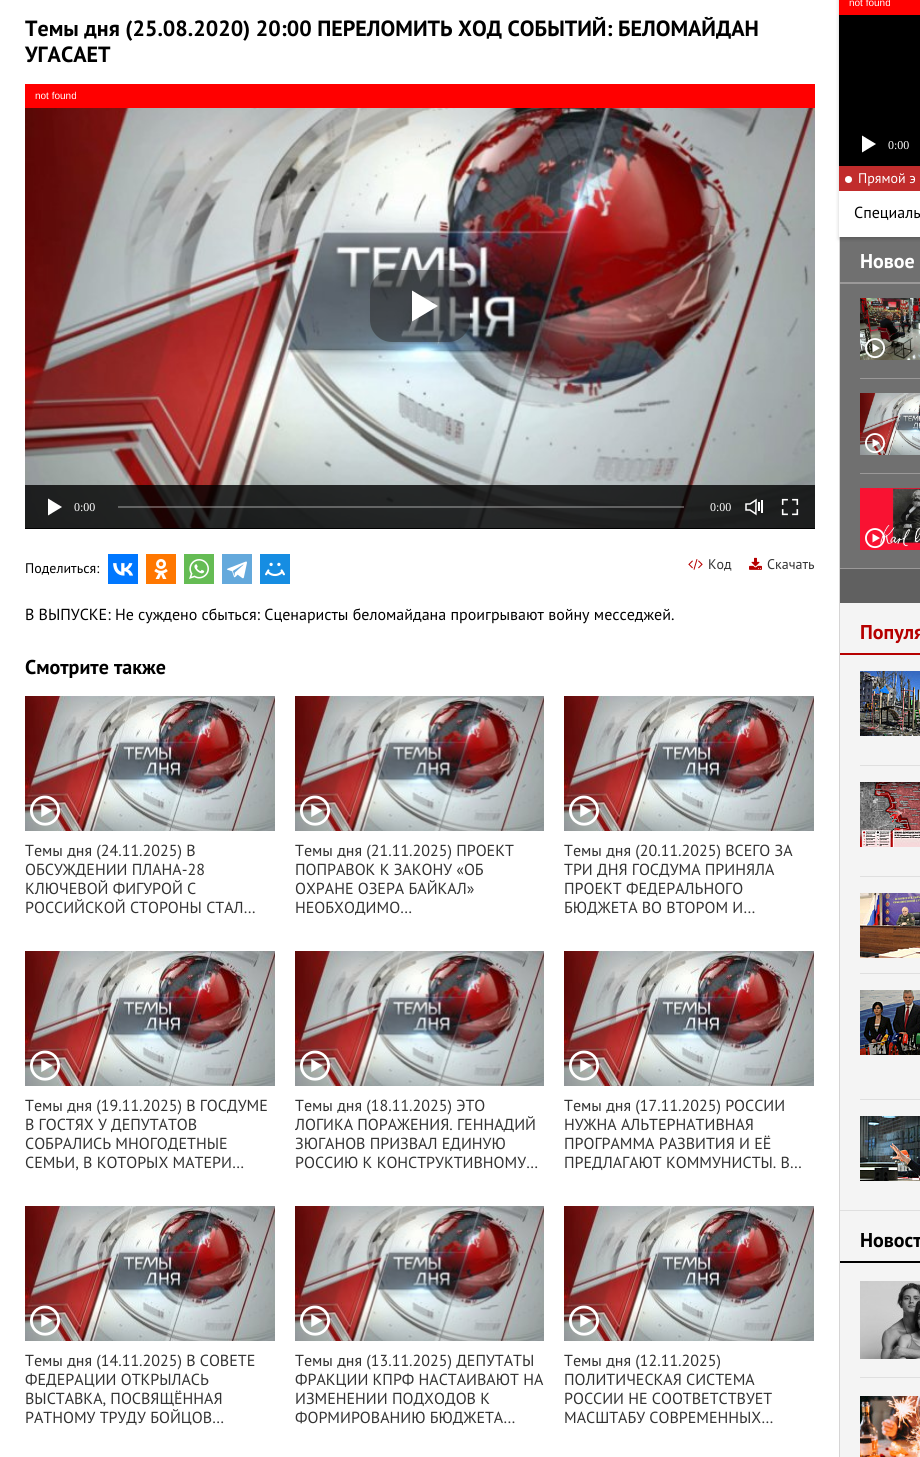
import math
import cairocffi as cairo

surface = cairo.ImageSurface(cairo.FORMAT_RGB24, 920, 1457)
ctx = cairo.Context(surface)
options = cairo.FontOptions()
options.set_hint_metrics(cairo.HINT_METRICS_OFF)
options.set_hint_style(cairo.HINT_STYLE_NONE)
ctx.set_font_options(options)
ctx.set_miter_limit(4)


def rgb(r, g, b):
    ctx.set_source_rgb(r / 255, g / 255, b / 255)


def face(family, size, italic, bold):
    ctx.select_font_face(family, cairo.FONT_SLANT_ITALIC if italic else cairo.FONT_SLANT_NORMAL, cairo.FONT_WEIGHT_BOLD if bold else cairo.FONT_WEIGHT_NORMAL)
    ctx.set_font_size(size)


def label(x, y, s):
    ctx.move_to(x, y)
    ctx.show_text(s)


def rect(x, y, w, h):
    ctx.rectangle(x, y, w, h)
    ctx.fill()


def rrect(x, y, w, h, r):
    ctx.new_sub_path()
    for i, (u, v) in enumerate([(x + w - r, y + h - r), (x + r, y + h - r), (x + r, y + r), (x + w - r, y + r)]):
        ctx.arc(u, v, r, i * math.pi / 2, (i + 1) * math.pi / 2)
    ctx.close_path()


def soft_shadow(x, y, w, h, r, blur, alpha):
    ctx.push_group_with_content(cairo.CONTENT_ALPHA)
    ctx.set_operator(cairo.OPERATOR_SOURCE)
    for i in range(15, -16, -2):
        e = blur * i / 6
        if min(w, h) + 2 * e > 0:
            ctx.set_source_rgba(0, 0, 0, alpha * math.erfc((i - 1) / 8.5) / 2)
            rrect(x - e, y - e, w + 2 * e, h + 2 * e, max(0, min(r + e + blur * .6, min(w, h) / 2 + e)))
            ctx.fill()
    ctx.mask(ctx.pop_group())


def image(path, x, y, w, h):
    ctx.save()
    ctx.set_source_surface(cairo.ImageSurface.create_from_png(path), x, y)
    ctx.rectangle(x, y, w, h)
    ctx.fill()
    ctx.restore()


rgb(255, 255, 255)
ctx.paint()
face('PT Sans', 22, 0, 1)
rgb(0, 0, 0)
label(25, 36, 'Темы дня (25.08.2020) 20:00 ПЕРЕЛОМИТЬ ХОД СОБЫТИЙ: БЕЛОМАЙДАН')
label(25, 62, 'УГАСАЕТ')
rect(25, 528, 790, 1)
rgb(255, 0, 0)
rect(25, 84, 790, 24)
face('Liberation Sans', 10, 0, 0)
rgb(255, 255, 255)
label(35, 99, 'not found')
image('image0.png', 25, 108, 790, 420)
ctx.set_source_rgba(0.161, 0.161, 0.161, 0.5)
rrect(370, 270, 100, 72, 22)
ctx.fill()
rgb(255, 255, 255)
ctx.new_path()
ctx.move_to(412, 290.5)
ctx.line_to(412, 321.5)
ctx.line_to(438, 306)
ctx.close_path()
ctx.fill()
ctx.set_source_rgba(0, 0, 0, 0.8)
rect(25, 485, 790, 43)
rgb(255, 255, 255)
ctx.new_path()
ctx.move_to(48, 498.5)
ctx.line_to(48, 515.5)
ctx.line_to(62, 507)
ctx.close_path()
ctx.fill()
face('Liberation Serif', 12, 0, 0)
label(74, 511, '0:00')
ctx.set_source_rgba(1, 1, 1, 0.3)
rect(118, 506, 566, 2)
rgb(255, 255, 255)
label(710, 511, '0:00')
image('image1.png', 745, 498, 18, 18)
image('image2.png', 781, 498, 18, 18)
face('PT Sans', 14, 0, 0)
rgb(0, 0, 0)
label(25, 573, 'Поделиться:')
rgb(0, 119, 255)
rect(108, 554, 30, 30)
image('image3.png', 113, 563, 20, 13)
rgb(255, 119, 0)
rect(146, 554, 30, 30)
image('image4.png', 154, 559, 14, 20)
rgb(101, 188, 84)
rect(184, 554, 30, 30)
image('image5.png', 189, 559, 20, 20)
rgb(100, 169, 220)
rect(222, 554, 30, 30)
image('image6.png', 227, 561, 20, 18)
rgb(22, 141, 226)
rect(260, 554, 30, 30)
image('image7.png', 265, 562, 20, 15)
image('image8.png', 688, 559, 15, 11)
rgb(51, 51, 51)
label(708, 569, 'Код')
image('image9.png', 749, 557, 13, 13)
label(767, 569, 'Скачать')
face('PT Sans', 16, 0, 0)
rgb(0, 0, 0)
label(25, 620, 'В ВЫПУСКЕ: Не суждено сбыться: Сценаристы беломайдана проигрывают войну месседжей.')
face('PT Sans', 20, 0, 1)
label(25, 674, 'Смотрите также')
image('image10.png', 25, 696, 250, 135)
image('image11.png', 30, 795, 30, 31)
face('PT Sans', 16, 0, 0)
rgb(51, 51, 51)
label(25, 856, 'Темы дня (24.11.2025) В')
label(25, 875, 'ОБСУЖДЕНИИ ПЛАНА-28')
label(25, 894, 'КЛЮЧЕВОЙ ФИГУРОЙ С')
label(25, 913, 'РОССИЙСКОЙ СТОРОНЫ СТАЛ…')
image('image12.png', 295, 696, 249, 135)
image('image13.png', 300, 795, 30, 31)
label(295, 856, 'Темы дня (21.11.2025) ПРОЕКТ')
label(295, 875, 'ПОПРАВОК К ЗАКОНУ «ОБ')
label(295, 894, 'ОХРАНЕ ОЗЕРА БАЙКАЛ»')
label(295, 913, 'НЕОБХОДИМО…')
image('image10.png', 564, 696, 250, 135)
image('image11.png', 569, 795, 30, 31)
label(564, 856, 'Темы дня (20.11.2025) ВСЕГО ЗА')
label(564, 875, 'ТРИ ДНЯ ГОСДУМА ПРИНЯЛА')
label(564, 894, 'ПРОЕКТ ФЕДЕРАЛЬНОГО')
label(564, 913, 'БЮДЖЕТА ВО ВТОРОМ И…')
image('image10.png', 25, 951, 250, 135)
image('image11.png', 30, 1050, 30, 31)
label(25, 1111, 'Темы дня (19.11.2025) В ГОСДУМЕ')
label(25, 1130, 'В ГОСТЯХ У ДЕПУТАТОВ')
label(25, 1149, 'СОБРАЛИСЬ МНОГОДЕТНЫЕ')
label(25, 1168, 'СЕМЬИ, В КОТОРЫХ МАТЕРИ…')
image('image12.png', 295, 951, 249, 135)
image('image13.png', 300, 1050, 30, 31)
label(295, 1111, 'Темы дня (18.11.2025) ЭТО')
label(295, 1130, 'ЛОГИКА ПОРАЖЕНИЯ. ГЕННАДИЙ')
label(295, 1149, 'ЗЮГАНОВ ПРИЗВАЛ ЕДИНУЮ')
label(295, 1168, 'РОССИЮ К КОНСТРУКТИВНОМУ…')
image('image10.png', 564, 951, 250, 135)
image('image11.png', 569, 1050, 30, 31)
label(564, 1111, 'Темы дня (17.11.2025) РОССИИ')
label(564, 1130, 'НУЖНА АЛЬТЕРНАТИВНАЯ')
label(564, 1149, 'ПРОГРАММА РАЗВИТИЯ И ЕЁ')
label(564, 1168, 'ПРЕДЛАГАЮТ КОММУНИСТЫ. В…')
image('image10.png', 25, 1206, 250, 135)
image('image11.png', 30, 1305, 30, 31)
label(25, 1366, 'Темы дня (14.11.2025) В СОВЕТЕ')
label(25, 1385, 'ФЕДЕРАЦИИ ОТКРЫЛАСЬ')
label(25, 1404, 'ВЫСТАВКА, ПОСВЯЩЁННАЯ')
label(25, 1423, 'РАТНОМУ ТРУДУ БОЙЦОВ…')
image('image12.png', 295, 1206, 249, 135)
image('image13.png', 300, 1305, 30, 31)
label(295, 1366, 'Темы дня (13.11.2025) ДЕПУТАТЫ')
label(295, 1385, 'ФРАКЦИИ КПРФ НАСТАИВАЮТ НА')
label(295, 1404, 'ИЗМЕНЕНИИ ПОДХОДОВ К')
label(295, 1423, 'ФОРМИРОВАНИЮ БЮДЖЕТА…')
image('image10.png', 564, 1206, 250, 135)
image('image11.png', 569, 1305, 30, 31)
label(564, 1366, 'Темы дня (12.11.2025)')
label(564, 1385, 'ПОЛИТИЧЕСКАЯ СИСТЕМА')
label(564, 1404, 'РОССИИ НЕ СООТВЕТСТВУЕТ')
label(564, 1423, 'МАСШТАБУ СОВРЕМЕННЫХ…')
rgb(112, 112, 112)
rect(840, 237, 80, 331)
rgb(214, 213, 213)
rect(839, 237, 1, 1220)
rgb(0, 0, 0)
soft_shadow(839, -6, 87, 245, 0, 2, 0.2)
rgb(255, 255, 255)
rect(839, 191, 81, 46)
rgb(0, 0, 0)
rect(839, 15, 81, 151)
rgb(255, 0, 0)
rect(839, 0, 81, 15)
face('Liberation Sans', 10, 0, 0)
rgb(255, 255, 255)
label(849, 6, 'not found')
ctx.new_path()
ctx.move_to(862, 135.5)
ctx.line_to(862, 152.5)
ctx.line_to(876, 144)
ctx.close_path()
ctx.fill()
face('Liberation Serif', 12, 0, 0)
label(888, 149, '0:00')
rgb(193, 44, 44)
rect(839, 166, 81, 25)
rgb(255, 255, 255)
ctx.new_path()
ctx.arc(848.5, 179.5, 3.5, 0, 2 * math.pi)
ctx.fill()
face('PT Sans', 14, 0, 0)
label(858, 183, 'Прямой э')
face('PT Sans', 16, 0, 0)
rgb(0, 0, 0)
label(854, 218, 'Специаль')
rgb(155, 153, 153)
rect(840, 282, 80, 2)
face('PT Sans', 20, 0, 1)
rgb(255, 255, 255)
label(860, 268, 'Новое')
rgb(155, 153, 153)
rect(860, 378, 60, 1)
image('image14.png', 860, 298, 60, 62)
image('image15.png', 865, 338, 20, 21)
rect(860, 473, 60, 1)
image('image16.png', 860, 393, 60, 62)
image('image17.png', 865, 433, 20, 20)
image('image18.png', 860, 488, 60, 62)
image('image19.png', 865, 528, 20, 21)
rgb(96, 96, 96)
rect(840, 569, 80, 34)
rgb(155, 153, 153)
rect(840, 568, 80, 1)
rgb(244, 244, 244)
rect(840, 603, 80, 854)
rgb(223, 223, 223)
rect(840, 1210, 80, 1)
rgb(182, 0, 0)
rect(840, 653, 80, 2)
label(860, 639, 'Популя')
image('image20.png', 860, 671, 60, 65)
rgb(223, 223, 223)
rect(860, 765, 60, 1)
image('image21.png', 860, 782, 60, 65)
rect(860, 876, 60, 1)
image('image22.png', 860, 893, 60, 65)
rect(860, 973, 60, 1)
image('image23.png', 860, 990, 60, 65)
rect(860, 1099, 60, 1)
image('image24.png', 860, 1116, 60, 65)
rgb(0, 0, 0)
rect(840, 1261, 80, 2)
label(860, 1247, 'Новост')
image('image25.png', 860, 1281, 60, 78)
rgb(223, 223, 223)
rect(860, 1377, 60, 1)
image('image26.png', 860, 1396, 60, 61)
surface.write_to_png('render.png')
